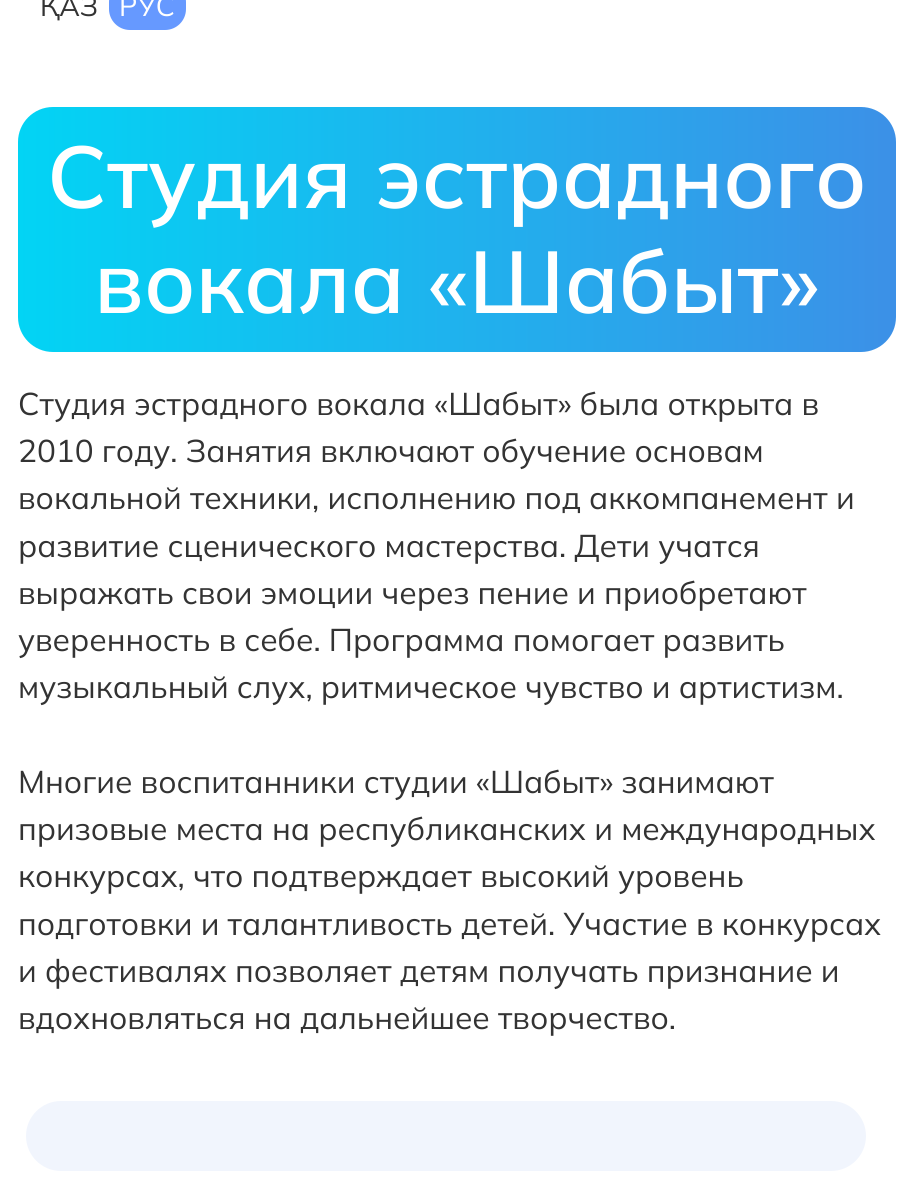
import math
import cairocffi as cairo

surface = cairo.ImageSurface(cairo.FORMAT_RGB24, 912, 1185)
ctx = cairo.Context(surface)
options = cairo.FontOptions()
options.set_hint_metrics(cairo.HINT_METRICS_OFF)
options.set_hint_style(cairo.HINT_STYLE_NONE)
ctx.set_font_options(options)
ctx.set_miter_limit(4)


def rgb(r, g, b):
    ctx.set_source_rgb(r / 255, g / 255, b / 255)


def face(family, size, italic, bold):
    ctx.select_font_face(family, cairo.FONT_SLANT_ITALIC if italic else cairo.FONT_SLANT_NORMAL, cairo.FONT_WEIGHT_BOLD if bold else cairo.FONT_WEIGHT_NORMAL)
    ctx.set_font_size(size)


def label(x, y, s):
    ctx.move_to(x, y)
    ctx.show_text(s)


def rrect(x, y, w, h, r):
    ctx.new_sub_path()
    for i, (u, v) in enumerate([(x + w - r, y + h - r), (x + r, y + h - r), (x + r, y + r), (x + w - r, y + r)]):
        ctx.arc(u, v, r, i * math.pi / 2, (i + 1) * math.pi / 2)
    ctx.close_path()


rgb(255, 255, 255)
ctx.paint()
face('Mulish', 28, 0, 0)
rgb(51, 51, 51)
label(40, 16, 'ҚАЗ')
rgb(102, 153, 255)
rrect(109, -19, 77, 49, 21)
ctx.fill()
rgb(255, 255, 255)
label(119, 16, 'РУС')
gradient = cairo.LinearGradient(18, 229, 896, 229)
gradient.add_color_stop_rgba(0, 0.008, 0.831, 0.957, 1)
gradient.add_color_stop_rgba(1, 0.235, 0.565, 0.906, 1)
ctx.set_source(gradient)
rrect(18, 107, 878, 245, 35)
ctx.fill()
face('Mulish SemiBold', 87.5, 0, 0)
rgb(255, 255, 255)
label(47, 208, 'Студия эстрадного')
label(94, 313, 'вокала «Шабыт»')
face('Mulish', 31.5, 0, 0)
rgb(51, 51, 51)
label(18, 415, 'Студия эстрадного вокала «Шабыт» была открыта в')
label(18, 462, '2010 году. Занятия включают обучение основам')
label(18, 509, 'вокальной техники, исполнению под аккомпанемент и')
label(18, 557, 'развитие сценического мастерства. Дети учатся')
label(18, 604, 'выражать свои эмоции через пение и приобретают')
label(18, 651, 'уверенность в себе. Программа помогает развить')
label(18, 698, 'музыкальный слух, ритмическое чувство и артистизм.')
label(18, 793, 'Многие воспитанники студии «Шабыт» занимают')
label(18, 840, 'призовые места на республиканских и международных')
label(18, 887, 'конкурсах, что подтверждает высокий уровень')
label(18, 935, 'подготовки и талантливость детей. Участие в конкурсах')
label(18, 982, 'и фестивалях позволяет детям получать признание и')
label(18, 1029, 'вдохновляться на дальнейшее творчество.')
rgb(241, 245, 253)
rrect(26, 1101, 840, 70, 35)
ctx.fill()
surface.write_to_png('render.png')
